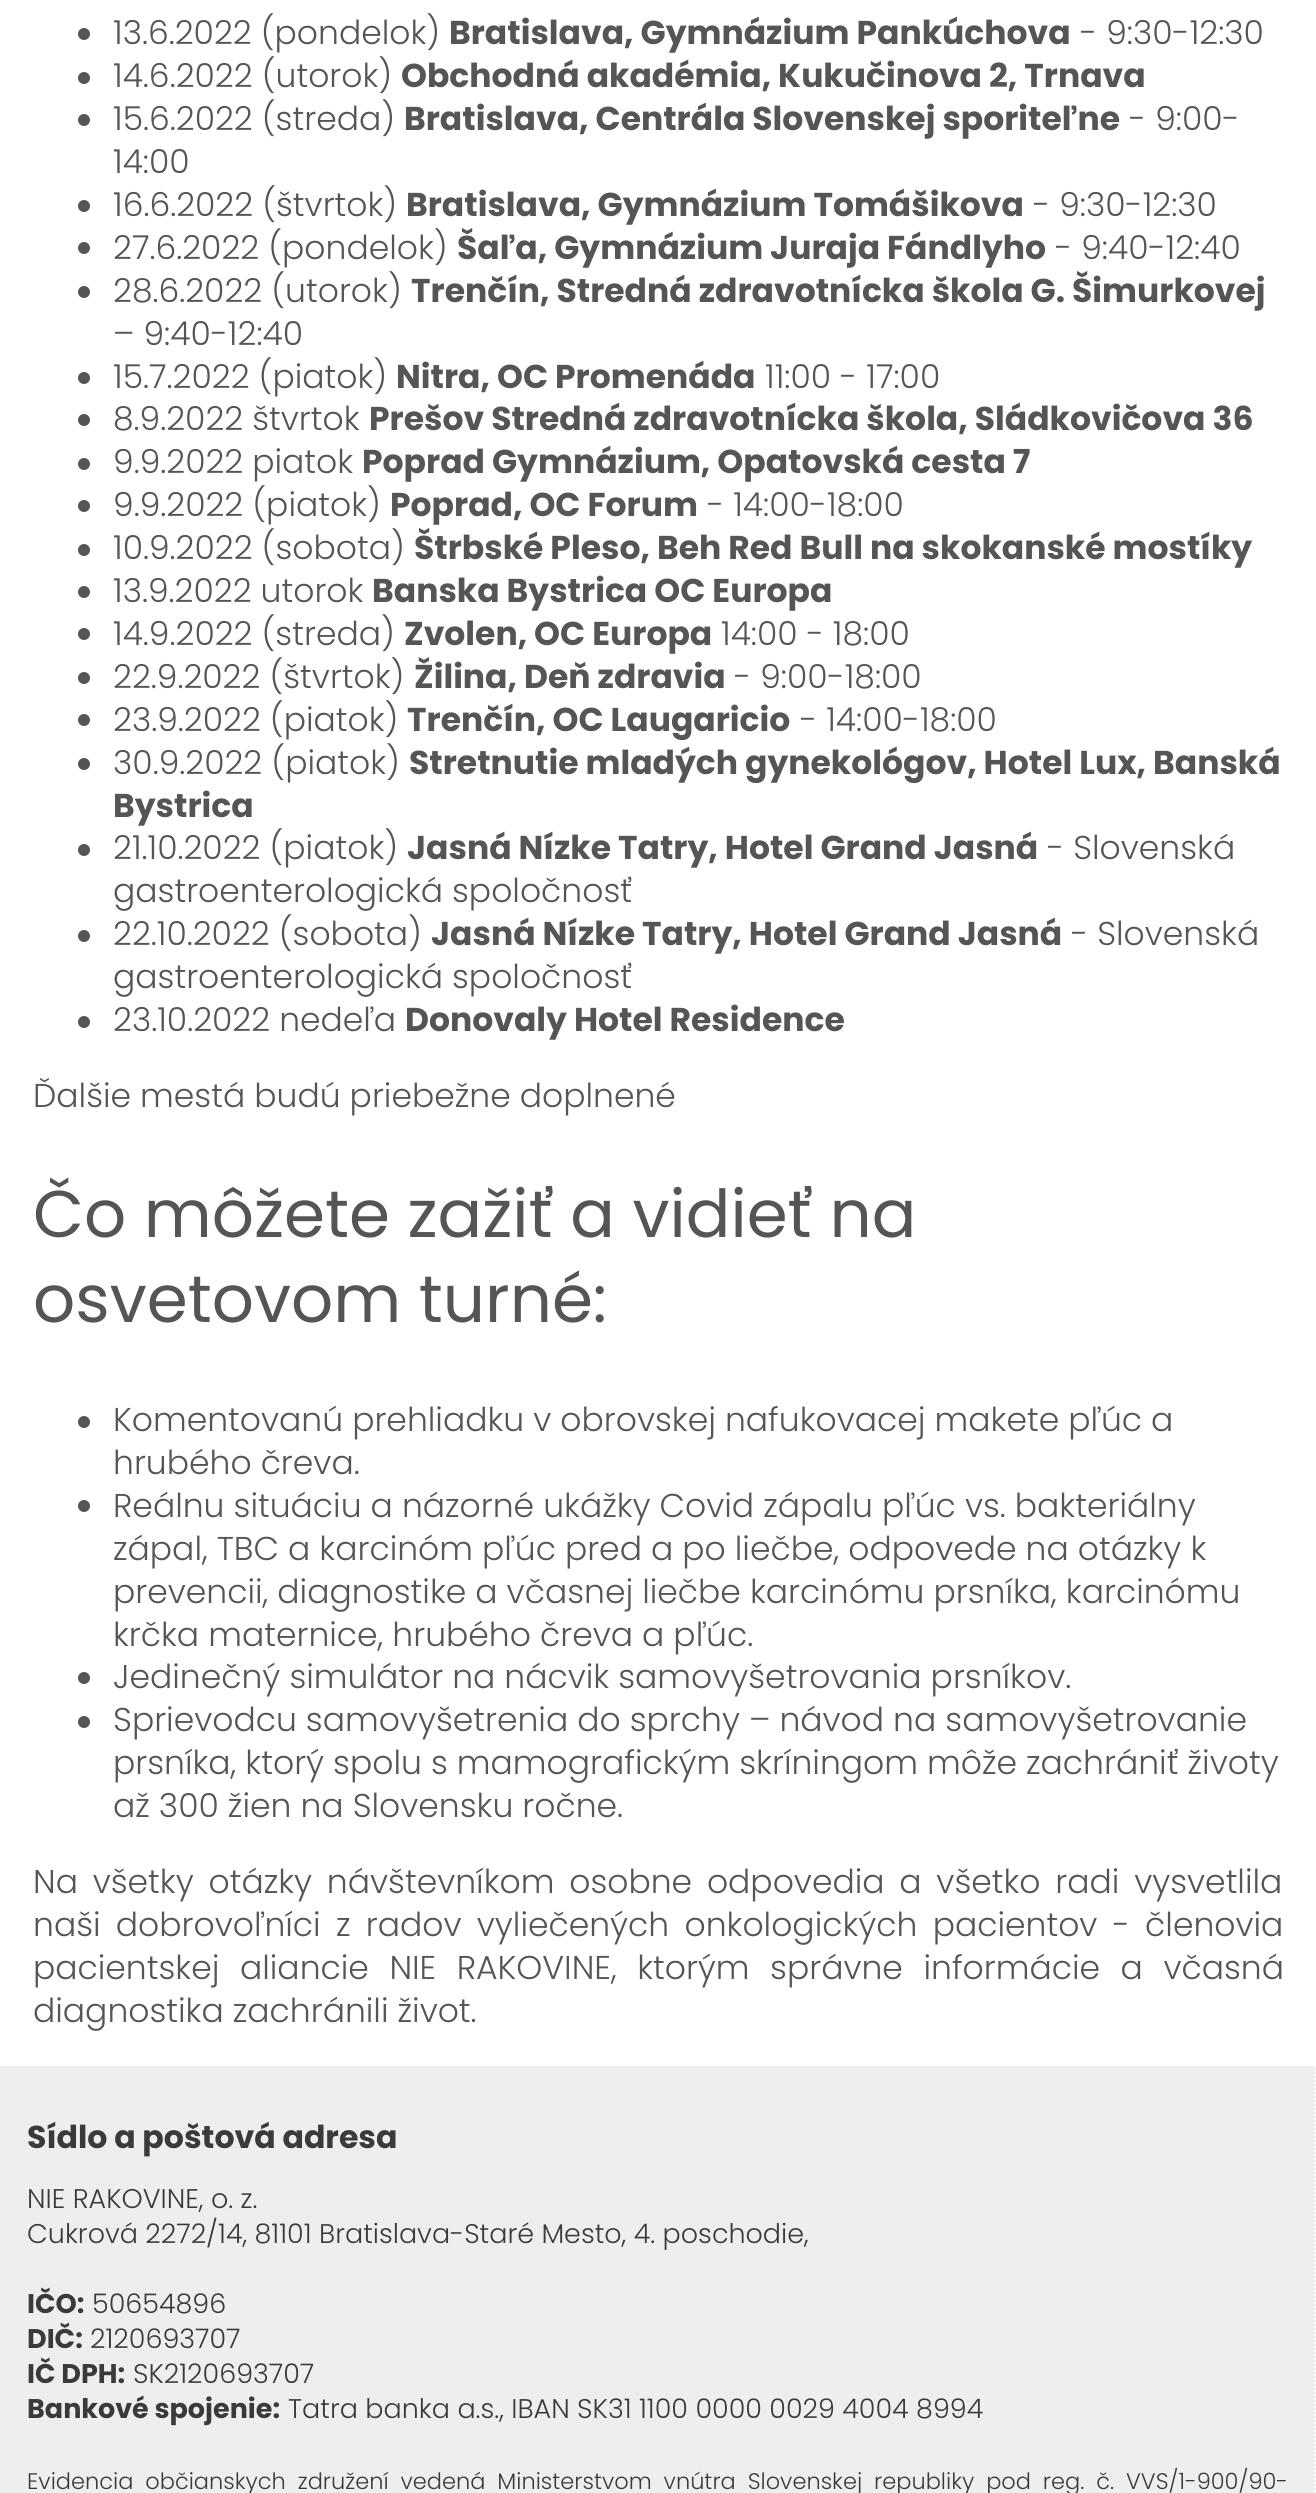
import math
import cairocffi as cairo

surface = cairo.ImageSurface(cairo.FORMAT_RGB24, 1316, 2493)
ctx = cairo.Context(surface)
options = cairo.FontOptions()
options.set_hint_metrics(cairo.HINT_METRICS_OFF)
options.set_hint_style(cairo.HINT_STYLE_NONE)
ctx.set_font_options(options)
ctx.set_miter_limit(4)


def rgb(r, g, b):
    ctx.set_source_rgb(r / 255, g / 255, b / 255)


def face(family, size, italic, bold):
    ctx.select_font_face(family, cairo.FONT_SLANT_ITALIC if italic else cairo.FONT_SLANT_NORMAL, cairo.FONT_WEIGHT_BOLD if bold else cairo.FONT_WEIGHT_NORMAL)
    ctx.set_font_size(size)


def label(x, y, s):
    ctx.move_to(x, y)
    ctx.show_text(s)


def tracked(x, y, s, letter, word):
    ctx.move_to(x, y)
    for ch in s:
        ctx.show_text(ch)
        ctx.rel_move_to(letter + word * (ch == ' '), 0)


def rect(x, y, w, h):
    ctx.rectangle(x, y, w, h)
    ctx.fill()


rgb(255, 255, 255)
ctx.paint()
rgb(85, 85, 85)
ctx.arc(84, 34, 6, 0, 2 * math.pi)
ctx.fill()
face('Poppins Light', 33, 0, 0)
label(113, 44, '13.6.2022 (pondelok)')
face('Poppins', 33, 0, 1)
label(449, 44, 'Bratislava, Gymnázium Pankúchova')
face('Poppins Light', 33, 0, 0)
label(1080, 44, '- 9:30-12:30')
ctx.new_path()
ctx.arc(84, 78, 6, 0, 2 * math.pi)
ctx.fill()
label(113, 87, '14.6.2022 (utorok)')
face('Poppins', 33, 0, 1)
label(401, 87, 'Obchodná akadémia, Kukučinova 2, Trnava')
ctx.new_path()
ctx.arc(84, 120, 6, 0, 2 * math.pi)
ctx.fill()
face('Poppins Light', 33, 0, 0)
label(113, 130, '15.6.2022 (streda)')
face('Poppins', 33, 0, 1)
label(404, 130, 'Bratislava, Centrála Slovenskej sporiteľne')
face('Poppins Light', 33, 0, 0)
label(1129, 130, '- 9:00-')
label(113, 173, '14:00')
ctx.new_path()
ctx.arc(84, 206, 6, 0, 2 * math.pi)
ctx.fill()
label(113, 216, '16.6.2022 (štvrtok)')
face('Poppins', 33, 0, 1)
label(406, 216, 'Bratislava, Gymnázium Tomášikova')
face('Poppins Light', 33, 0, 0)
label(1033, 216, '- 9:30-12:30')
ctx.new_path()
ctx.arc(84, 248, 6, 0, 2 * math.pi)
ctx.fill()
label(113, 259, '27.6.2022 (pondelok)')
face('Poppins', 33, 0, 1)
label(457, 259, 'Šaľa, Gymnázium Juraja Fándlyho')
face('Poppins Light', 33, 0, 0)
label(1055, 259, '- 9:40-12:40')
ctx.new_path()
ctx.arc(84, 292, 6, 0, 2 * math.pi)
ctx.fill()
label(113, 302, '28.6.2022 (utorok)')
face('Poppins', 33, 0, 1)
label(411, 302, 'Trenčín, Stredná zdravotnícka škola G. Šimurkovej')
face('Poppins Light', 33, 0, 0)
label(113, 345, '– 9:40-12:40')
ctx.new_path()
ctx.arc(84, 378, 6, 0, 2 * math.pi)
ctx.fill()
label(113, 388, '15.7.2022 (piatok)')
face('Poppins', 33, 0, 1)
label(396, 388, 'Nitra, OC Promenáda')
face('Poppins Light', 33, 0, 0)
label(765, 388, '11:00 - 17:00')
ctx.new_path()
ctx.arc(84, 420, 6, 0, 2 * math.pi)
ctx.fill()
label(113, 430, '8.9.2022 štvrtok')
face('Poppins', 33, 0, 1)
label(369, 430, 'Prešov Stredná zdravotnícka škola, Sládkovičova 36')
ctx.new_path()
ctx.arc(84, 464, 6, 0, 2 * math.pi)
ctx.fill()
face('Poppins Light', 33, 0, 0)
label(113, 473, '9.9.2022 piatok')
face('Poppins', 33, 0, 1)
label(362, 473, 'Poprad Gymnázium, Opatovská cesta 7')
ctx.new_path()
ctx.arc(84, 506, 6, 0, 2 * math.pi)
ctx.fill()
face('Poppins Light', 33, 0, 0)
label(113, 516, '9.9.2022 (piatok)')
face('Poppins', 33, 0, 1)
label(390, 516, 'Poprad, OC Forum')
face('Poppins Light', 33, 0, 0)
label(707, 516, '- 14:00-18:00')
ctx.new_path()
ctx.arc(84, 550, 6, 0, 2 * math.pi)
ctx.fill()
label(113, 559, '10.9.2022 (sobota)')
face('Poppins', 33, 0, 1)
label(414, 559, 'Štrbské Pleso, Beh Red Bull na skokanské mostíky')
ctx.new_path()
ctx.arc(84, 592, 6, 0, 2 * math.pi)
ctx.fill()
face('Poppins Light', 33, 0, 0)
label(113, 602, '13.9.2022 utorok')
face('Poppins', 33, 0, 1)
label(372, 602, 'Banska Bystrica OC Europa')
ctx.new_path()
ctx.arc(84, 634, 6, 0, 2 * math.pi)
ctx.fill()
face('Poppins Light', 33, 0, 0)
label(113, 645, '14.9.2022 (streda)')
face('Poppins', 33, 0, 1)
label(404, 645, 'Zvolen, OC Europa')
face('Poppins Light', 33, 0, 0)
label(721, 645, '14:00 - 18:00')
ctx.new_path()
ctx.arc(84, 678, 6, 0, 2 * math.pi)
ctx.fill()
label(113, 688, '22.9.2022 (štvrtok)')
face('Poppins', 33, 0, 1)
label(414, 688, 'Žilina, Deň zdravia')
face('Poppins Light', 33, 0, 0)
label(734, 688, '- 9:00-18:00')
ctx.new_path()
ctx.arc(84, 720, 6, 0, 2 * math.pi)
ctx.fill()
label(113, 731, '23.9.2022 (piatok)')
face('Poppins', 33, 0, 1)
label(407, 731, 'Trenčín, OC Laugaricio')
face('Poppins Light', 33, 0, 0)
label(800, 731, '- 14:00-18:00')
ctx.new_path()
ctx.arc(84, 764, 6, 0, 2 * math.pi)
ctx.fill()
label(113, 774, '30.9.2022 (piatok)')
face('Poppins', 33, 0, 1)
label(409, 774, 'Stretnutie mladých gynekológov, Hotel Lux, Banská')
label(113, 817, 'Bystrica')
ctx.new_path()
ctx.arc(84, 850, 6, 0, 2 * math.pi)
ctx.fill()
face('Poppins Light', 33, 0, 0)
label(113, 859, '21.10.2022 (piatok)')
face('Poppins', 33, 0, 1)
label(407, 859, 'Jasná Nízke Tatry, Hotel Grand Jasná')
face('Poppins Light', 33, 0, 0)
label(1047, 859, '- Slovenská')
label(113, 902, 'gastroenterologická spoločnosť')
ctx.new_path()
ctx.arc(84, 936, 6, 0, 2 * math.pi)
ctx.fill()
label(113, 945, '22.10.2022 (sobota)')
face('Poppins', 33, 0, 1)
label(431, 945, 'Jasná Nízke Tatry, Hotel Grand Jasná')
face('Poppins Light', 33, 0, 0)
label(1071, 945, '- Slovenská')
label(113, 988, 'gastroenterologická spoločnosť')
ctx.new_path()
ctx.arc(84, 1022, 6, 0, 2 * math.pi)
ctx.fill()
label(113, 1031, '23.10.2022 nedeľa')
face('Poppins', 33, 0, 1)
label(405, 1031, 'Donovaly Hotel Residence')
face('Poppins Light', 33, 0, 0)
label(33, 1107, 'Ďalšie mestá budú priebežne doplnené')
face('Poppins', 66, 0, 0)
label(33, 1237, 'Čo môžete zažiť a vidieť na')
label(33, 1322, 'osvetovom turné:')
ctx.new_path()
ctx.arc(84, 1422, 6, 0, 2 * math.pi)
ctx.fill()
face('Poppins Light', 33, 0, 0)
label(113, 1431, 'Komentovanú prehliadku v obrovskej nafukovacej makete pľúc a')
label(113, 1474, 'hrubého čreva.')
ctx.new_path()
ctx.arc(84, 1506, 6, 0, 2 * math.pi)
ctx.fill()
label(113, 1517, 'Reálnu situáciu a názorné ukážky Covid zápalu pľúc vs. bakteriálny')
label(113, 1560, 'zápal, TBC a karcinóm pľúc pred a po liečbe, odpovede na otázky k')
label(113, 1603, 'prevencii, diagnostike a včasnej liečbe karcinómu prsníka, karcinómu')
label(113, 1646, 'krčka maternice, hrubého čreva a pľúc.')
ctx.new_path()
ctx.arc(84, 1678, 6, 0, 2 * math.pi)
ctx.fill()
label(113, 1688, 'Jedinečný simulátor na nácvik samovyšetrovania prsníkov.')
ctx.new_path()
ctx.arc(84, 1722, 6, 0, 2 * math.pi)
ctx.fill()
label(113, 1731, 'Sprievodcu samovyšetrenia do sprchy – návod na samovyšetrovanie')
label(113, 1774, 'prsníka, ktorý spolu s mamografickým skríningom môže zachrániť životy')
label(113, 1817, 'až 300 žien na Slovensku ročne.')
tracked(33, 1893, 'Na všetky otázky návštevníkom osobne odpovedia a všetko radi vysvetlila', 0, 5.75)
tracked(33, 1936, 'naši dobrovoľníci z radov vyliečených onkologických pacientov - členovia', 0, 6.25)
tracked(33, 1979, 'pacientskej aliancie NIE RAKOVINE, ktorým správne informácie a včasná', 0, 11.5)
label(33, 2022, 'diagnostika zachránili život.')
rgb(237, 238, 238)
rect(0, 2066, 1316, 427)
ctx.new_path()
ctx.move_to(1315, 2066)
ctx.line_to(1315, 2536)
rgb(255, 255, 255)
ctx.set_dash([2, 2])
ctx.stroke()
face('Poppins', 31.6, 0, 1)
rgb(58, 58, 58)
label(27, 2148, 'Sídlo a poštová adresa')
face('Poppins Light', 27, 0, 0)
label(27, 2208, 'NIE RAKOVINE, o. z.')
label(27, 2243, 'Cukrová 2272/14, 81101 Bratislava-Staré Mesto, 4. poschodie,')
face('Poppins', 27, 0, 1)
label(27, 2313, 'IČO:')
face('Poppins Light', 27, 0, 0)
label(92, 2313, '50654896')
face('Poppins', 27, 0, 1)
label(27, 2348, 'DIČ:')
face('Poppins Light', 27, 0, 0)
label(90, 2348, '2120693707')
face('Poppins', 27, 0, 1)
label(27, 2383, 'IČ DPH:')
face('Poppins Light', 27, 0, 0)
label(133, 2383, 'SK2120693707')
face('Poppins', 27, 0, 1)
label(27, 2418, 'Bankové spojenie:')
face('Poppins Light', 27, 0, 0)
label(288, 2418, 'Tatra banka a.s., IBAN SK31 1100 0000 0029 4004 8994')
face('Poppins Light', 22.5, 0, 0)
tracked(27, 2489, 'Evidencia občianskych združení vedená Ministerstvom vnútra Slovenskej republiky pod reg. č. VVS/1-900/90-', 0, 5.75)
surface.write_to_png('render.png')
